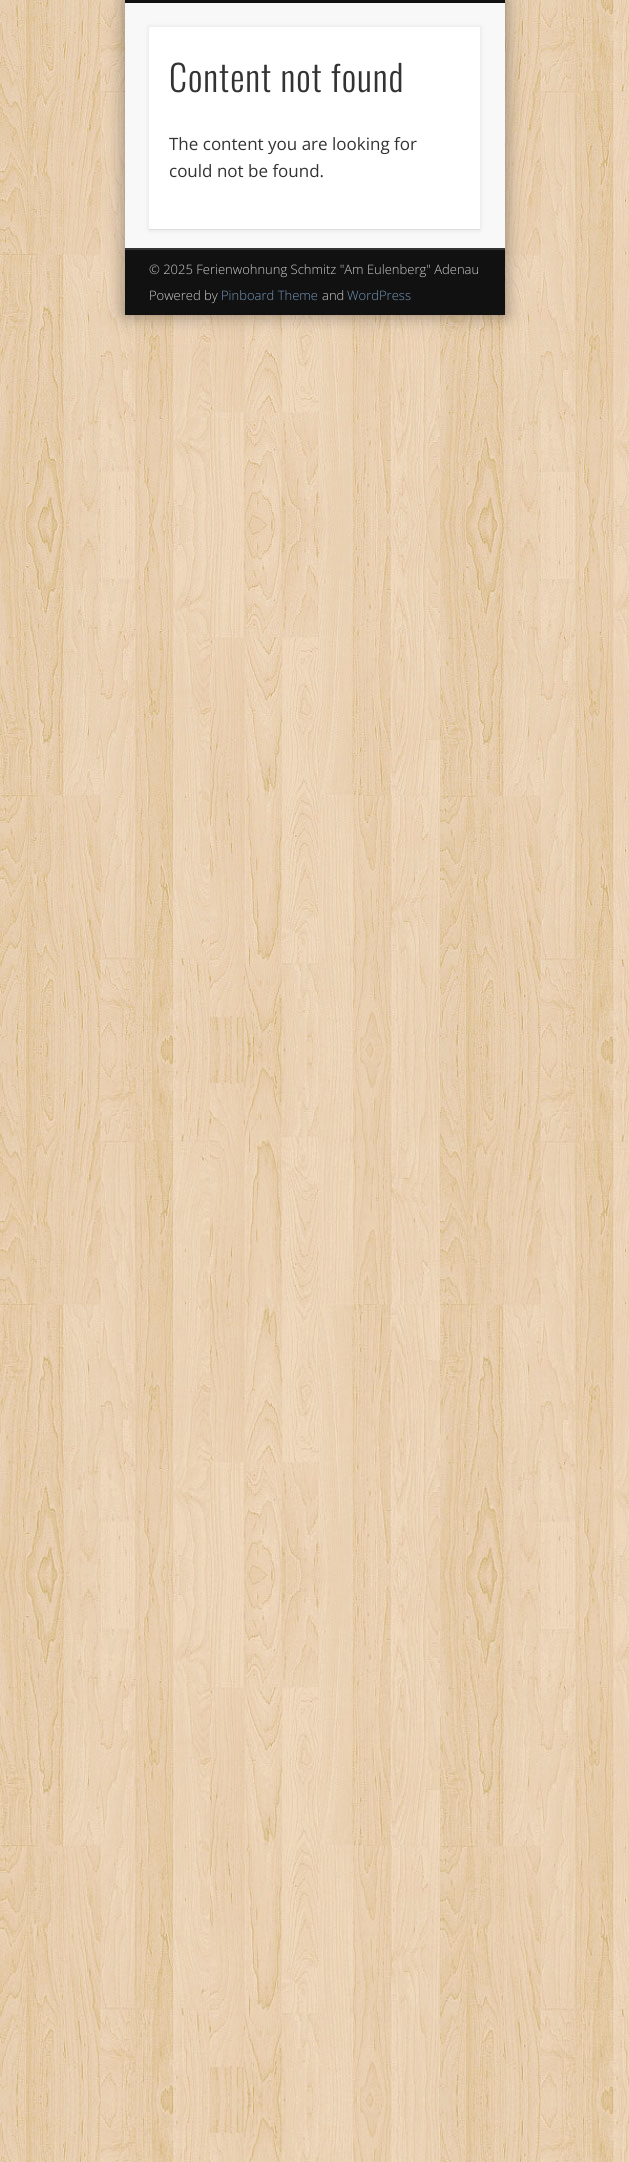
import math
import cairocffi as cairo

surface = cairo.ImageSurface(cairo.FORMAT_RGB24, 629, 2162)
ctx = cairo.Context(surface)
options = cairo.FontOptions()
options.set_hint_metrics(cairo.HINT_METRICS_OFF)
options.set_hint_style(cairo.HINT_STYLE_NONE)
ctx.set_font_options(options)
ctx.set_miter_limit(4)


def rgb(r, g, b):
    ctx.set_source_rgb(r / 255, g / 255, b / 255)


def face(family, size, italic, bold):
    ctx.select_font_face(family, cairo.FONT_SLANT_ITALIC if italic else cairo.FONT_SLANT_NORMAL, cairo.FONT_WEIGHT_BOLD if bold else cairo.FONT_WEIGHT_NORMAL)
    ctx.set_font_size(size)


def label(x, y, s):
    ctx.move_to(x, y)
    ctx.show_text(s)


def tracked(x, y, s, letter, word):
    ctx.move_to(x, y)
    for ch in s:
        ctx.show_text(ch)
        ctx.rel_move_to(letter + word * (ch == ' '), 0)


def rect(x, y, w, h):
    ctx.rectangle(x, y, w, h)
    ctx.fill()


def rrect(x, y, w, h, r):
    ctx.new_sub_path()
    for i, (u, v) in enumerate([(x + w - r, y + h - r), (x + r, y + h - r), (x + r, y + r), (x + w - r, y + r)]):
        ctx.arc(u, v, r, i * math.pi / 2, (i + 1) * math.pi / 2)
    ctx.close_path()


def soft_shadow(x, y, w, h, r, blur, alpha):
    ctx.push_group_with_content(cairo.CONTENT_ALPHA)
    ctx.set_operator(cairo.OPERATOR_SOURCE)
    for i in range(15, -16, -2):
        e = blur * i / 6
        if min(w, h) + 2 * e > 0:
            ctx.set_source_rgba(0, 0, 0, alpha * math.erfc((i - 1) / 8.5) / 2)
            rrect(x - e, y - e, w + 2 * e, h + 2 * e, max(0, min(r + e + blur * .6, min(w, h) / 2 + e)))
            ctx.fill()
    ctx.mask(ctx.pop_group())


def image(path, x, y, w, h):
    ctx.save()
    ctx.set_source_surface(cairo.ImageSurface.create_from_png(path), x, y)
    ctx.rectangle(x, y, w, h)
    ctx.fill()
    ctx.restore()


rgb(255, 255, 255)
ctx.paint()
image('image0.png', 0, 0, 629, 2162)
rgb(0, 0, 0)
soft_shadow(125, 0, 380, 315, 0, 9, 0.4)
rgb(248, 248, 248)
rect(125, 3, 380, 245)
rgb(17, 17, 17)
rect(125, 0, 380, 3)
rgb(0, 0, 0)
soft_shadow(149, 27, 331, 203, 0, 2.5, 0.1)
rgb(255, 255, 255)
rect(149, 27, 331, 202)
rgb(222, 222, 222)
rect(149, 229, 331, 1)
face('Oswald Light', 36, 0, 0)
rgb(51, 51, 51)
tracked(169, 92, 'Content not found', 1, 0)
face('Open Sans', 17, 0, 0)
label(169, 150, 'The content you are looking for')
label(169, 177, 'could not be found.')
rgb(52, 52, 52)
rect(125, 248, 380, 2)
rgb(17, 17, 17)
rect(125, 250, 380, 65)
face('Open Sans Light', 13, 0, 0)
rgb(204, 204, 204)
label(149, 274, '© 2025 Ferienwohnung Schmitz "Am Eulenberg" Adenau')
label(149, 300, 'Powered by')
rgb(117, 151, 185)
label(221, 300, 'Pinboard Theme')
rgb(204, 204, 204)
label(322, 300, 'and')
rgb(117, 151, 185)
label(347, 300, 'WordPress')
surface.write_to_png('render.png')
